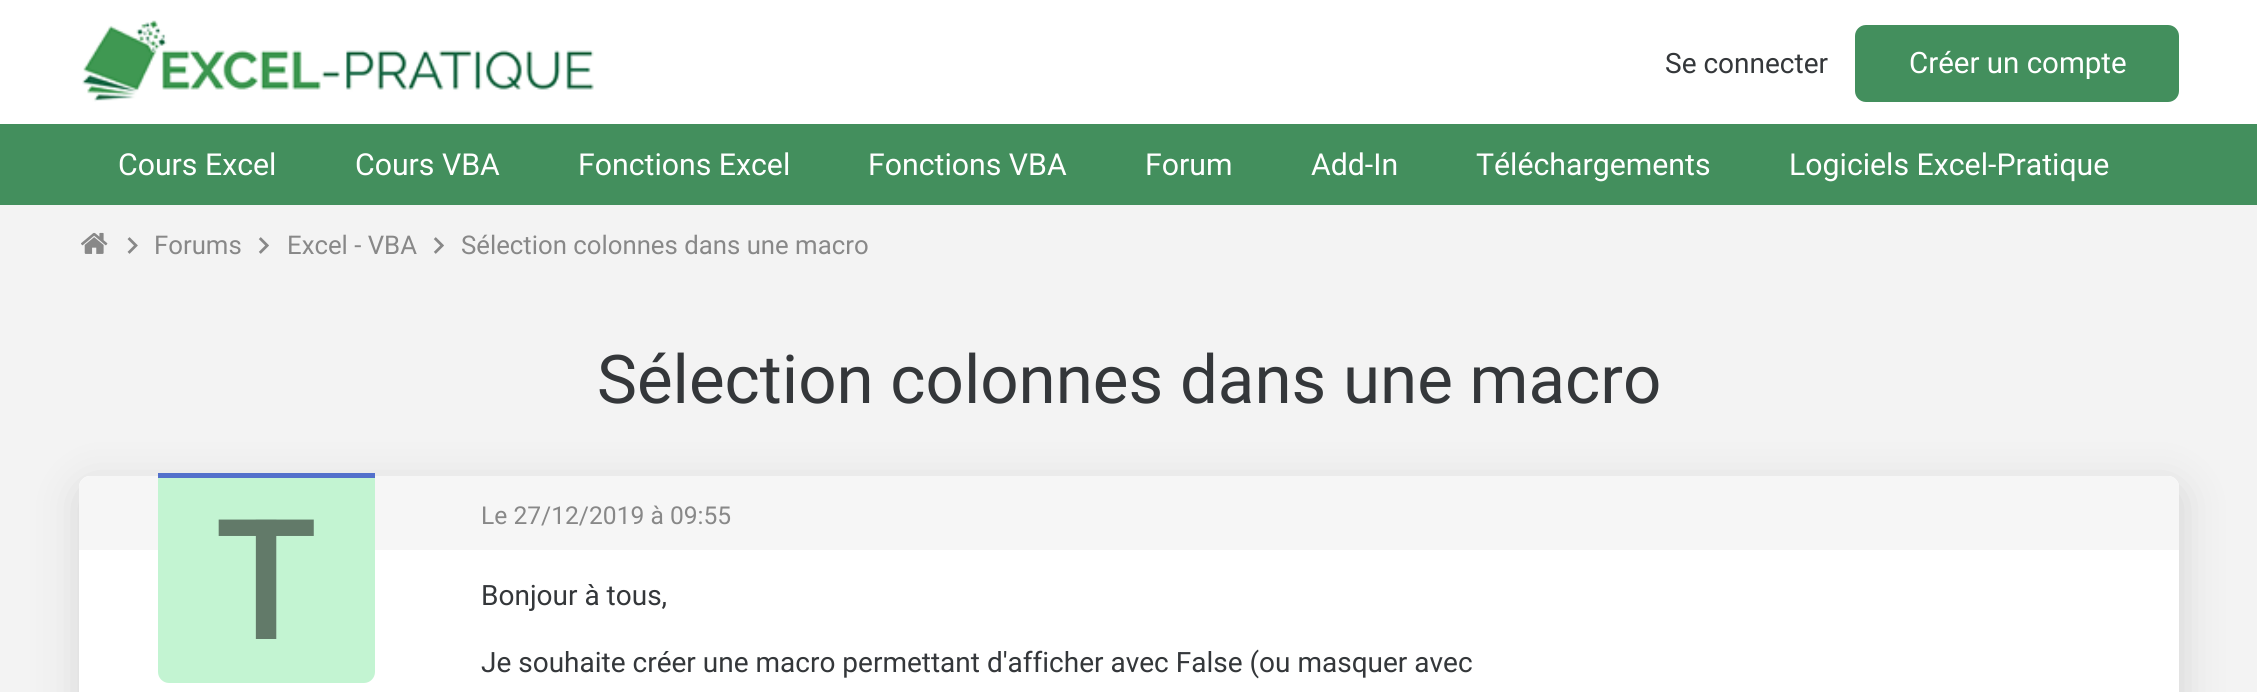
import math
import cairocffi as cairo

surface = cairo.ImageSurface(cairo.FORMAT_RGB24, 2257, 692)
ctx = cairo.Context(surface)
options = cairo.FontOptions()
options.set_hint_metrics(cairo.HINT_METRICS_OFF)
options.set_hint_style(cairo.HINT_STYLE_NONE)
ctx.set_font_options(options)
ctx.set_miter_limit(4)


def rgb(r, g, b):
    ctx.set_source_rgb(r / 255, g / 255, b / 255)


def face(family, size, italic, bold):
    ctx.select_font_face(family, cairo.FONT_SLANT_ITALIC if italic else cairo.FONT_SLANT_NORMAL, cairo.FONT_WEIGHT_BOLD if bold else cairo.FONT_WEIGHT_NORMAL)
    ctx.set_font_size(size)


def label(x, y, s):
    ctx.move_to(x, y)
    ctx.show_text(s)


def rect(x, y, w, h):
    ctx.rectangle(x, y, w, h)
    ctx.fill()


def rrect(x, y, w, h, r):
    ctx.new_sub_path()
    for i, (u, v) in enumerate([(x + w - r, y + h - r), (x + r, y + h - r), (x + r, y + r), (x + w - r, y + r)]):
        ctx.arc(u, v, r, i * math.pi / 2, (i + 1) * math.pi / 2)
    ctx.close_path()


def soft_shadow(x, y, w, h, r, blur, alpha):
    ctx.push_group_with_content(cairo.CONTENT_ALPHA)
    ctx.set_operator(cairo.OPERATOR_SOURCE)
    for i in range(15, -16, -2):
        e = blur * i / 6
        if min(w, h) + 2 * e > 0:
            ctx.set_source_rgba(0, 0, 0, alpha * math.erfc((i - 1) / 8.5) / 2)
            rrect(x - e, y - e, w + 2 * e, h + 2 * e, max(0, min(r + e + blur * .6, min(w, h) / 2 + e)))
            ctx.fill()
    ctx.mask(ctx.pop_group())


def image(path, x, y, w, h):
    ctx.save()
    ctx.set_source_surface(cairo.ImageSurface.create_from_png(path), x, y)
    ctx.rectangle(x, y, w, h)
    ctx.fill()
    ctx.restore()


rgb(243, 243, 243)
ctx.paint()
rgb(255, 255, 255)
rect(0, 0, 2257, 124)
image('image0.png', 82, 20, 512, 82)
face('Roboto', 28, 0, 0)
rgb(52, 55, 58)
label(1665, 73, 'Se connecter')
rgb(67, 143, 93)
rrect(1855, 25, 324, 77, 11)
ctx.fill()
face('Roboto', 29.5, 0, 0)
rgb(255, 255, 255)
label(1909, 73, 'Créer un compte')
rgb(67, 143, 93)
rect(0, 124, 2257, 81)
face('Roboto', 30.25, 0, 0)
rgb(255, 255, 255)
label(118, 175, 'Cours Excel')
label(355, 175, 'Cours VBA')
label(578, 175, 'Fonctions Excel')
label(868, 175, 'Fonctions VBA')
label(1145, 175, 'Forum')
label(1311, 175, 'Add-In')
label(1476, 175, 'Téléchargements')
label(1789, 175, 'Logiciels Excel-Pratique')
image('image1.png', 81, 232, 27, 22)
image('image2.png', 127, 237, 11, 17)
face('Roboto', 25.75, 0, 0)
rgb(136, 136, 136)
label(154, 254, 'Forums')
image('image3.png', 258, 237, 11, 17)
label(287, 254, 'Excel - VBA')
image('image3.png', 433, 237, 11, 17)
label(461, 254, 'Sélection colonnes dans une macro')
face('Roboto', 67.25, 0, 0)
rgb(52, 55, 58)
label(597, 403, 'Sélection colonnes dans une macro')
rgb(150, 150, 150)
soft_shadow(81, 487, 2100, 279, 11, 21, 0.35)
rgb(255, 255, 255)
rrect(79, 476, 2100, 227, 11)
ctx.fill()
rgb(246, 246, 246)
ctx.new_path()
ctx.move_to(90, 476)
ctx.line_to(453, 476)
ctx.line_to(453, 550)
ctx.line_to(79, 550)
ctx.line_to(79, 487)
ctx.curve_to(79, 481, 84, 476, 90, 476)
ctx.close_path()
ctx.fill()
ctx.new_path()
ctx.move_to(453, 476)
ctx.line_to(2168, 476)
ctx.curve_to(2174, 476, 2179, 481, 2179, 487)
ctx.line_to(2179, 550)
ctx.line_to(453, 550)
ctx.close_path()
ctx.fill()
face('Roboto', 24.6, 0, 0)
rgb(136, 136, 136)
label(481, 524, 'Le 27/12/2019 à 09:55')
rgb(195, 244, 210)
ctx.new_path()
ctx.move_to(158, 476)
ctx.line_to(375, 476)
ctx.line_to(375, 672)
ctx.curve_to(375, 678, 370, 683, 364, 683)
ctx.line_to(169, 683)
ctx.curve_to(163, 683, 158, 678, 158, 672)
ctx.close_path()
ctx.fill()
rgb(82, 112, 203)
rect(158, 473, 217, 5)
face('Roboto Medium', 168, 0, 0)
rgb(98, 122, 105)
label(215, 639, 'T')
face('Roboto', 28, 0, 0)
rgb(52, 55, 58)
label(481, 605, 'Bonjour à tous,')
label(481, 672, 'Je souhaite créer une macro permettant d\'afficher avec False (ou masquer avec')
surface.write_to_png('render.png')
